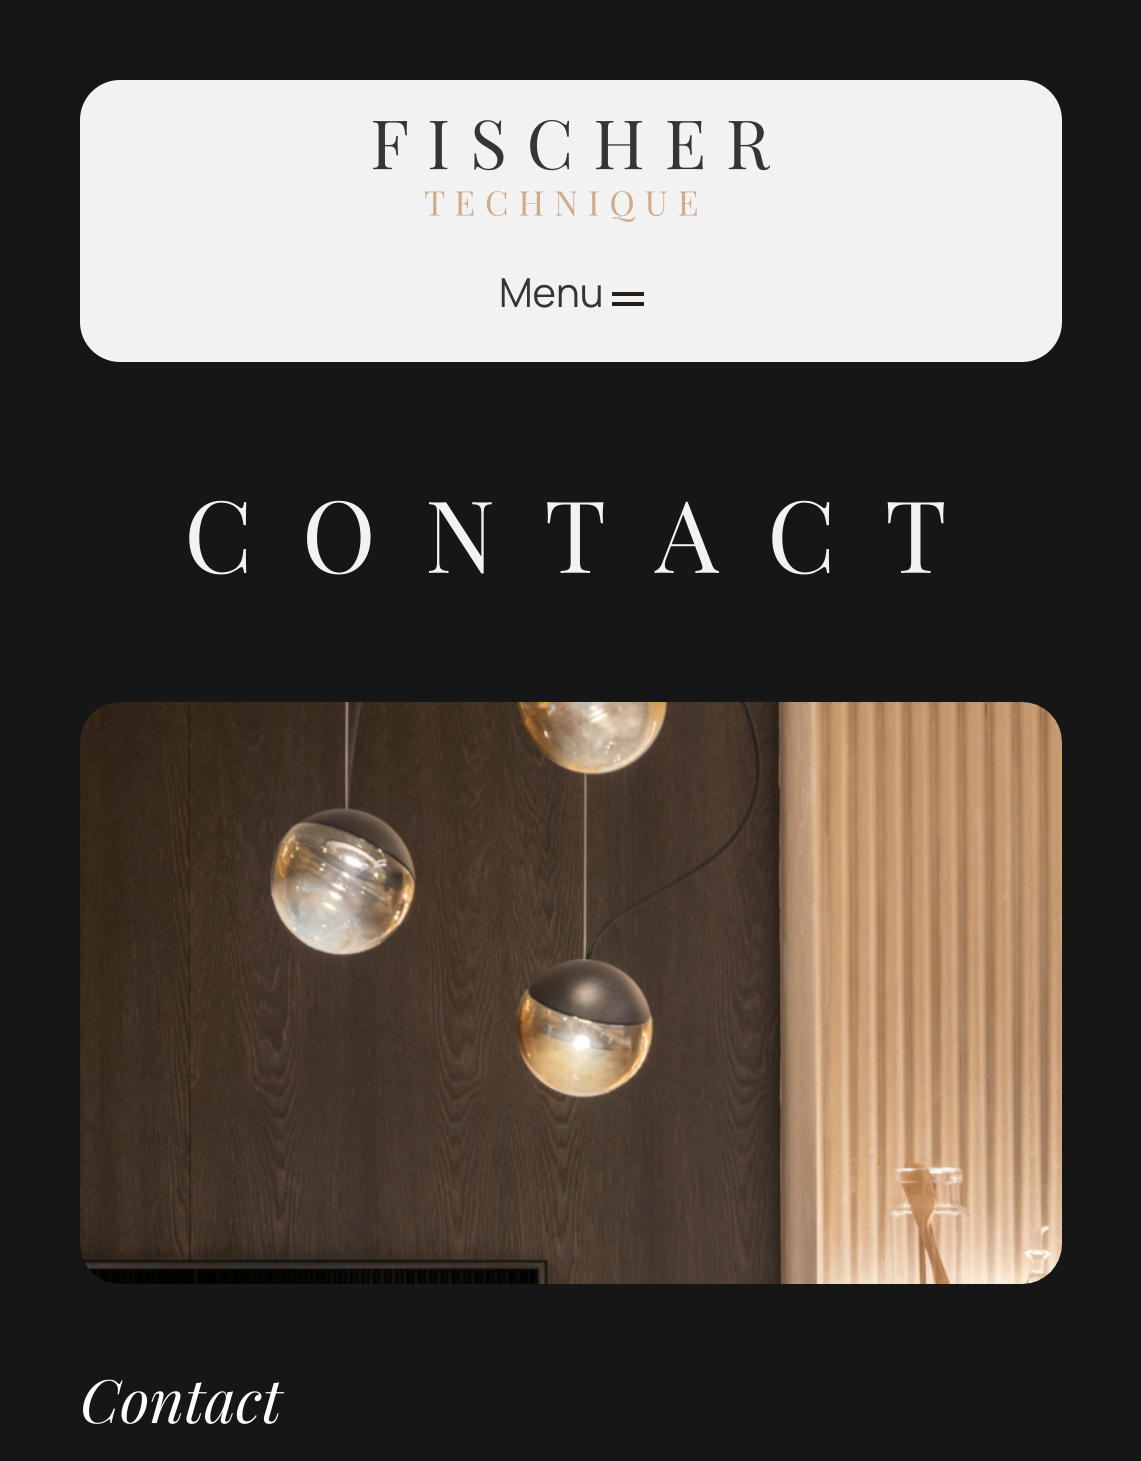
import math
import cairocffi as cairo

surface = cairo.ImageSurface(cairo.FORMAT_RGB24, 1141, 1461)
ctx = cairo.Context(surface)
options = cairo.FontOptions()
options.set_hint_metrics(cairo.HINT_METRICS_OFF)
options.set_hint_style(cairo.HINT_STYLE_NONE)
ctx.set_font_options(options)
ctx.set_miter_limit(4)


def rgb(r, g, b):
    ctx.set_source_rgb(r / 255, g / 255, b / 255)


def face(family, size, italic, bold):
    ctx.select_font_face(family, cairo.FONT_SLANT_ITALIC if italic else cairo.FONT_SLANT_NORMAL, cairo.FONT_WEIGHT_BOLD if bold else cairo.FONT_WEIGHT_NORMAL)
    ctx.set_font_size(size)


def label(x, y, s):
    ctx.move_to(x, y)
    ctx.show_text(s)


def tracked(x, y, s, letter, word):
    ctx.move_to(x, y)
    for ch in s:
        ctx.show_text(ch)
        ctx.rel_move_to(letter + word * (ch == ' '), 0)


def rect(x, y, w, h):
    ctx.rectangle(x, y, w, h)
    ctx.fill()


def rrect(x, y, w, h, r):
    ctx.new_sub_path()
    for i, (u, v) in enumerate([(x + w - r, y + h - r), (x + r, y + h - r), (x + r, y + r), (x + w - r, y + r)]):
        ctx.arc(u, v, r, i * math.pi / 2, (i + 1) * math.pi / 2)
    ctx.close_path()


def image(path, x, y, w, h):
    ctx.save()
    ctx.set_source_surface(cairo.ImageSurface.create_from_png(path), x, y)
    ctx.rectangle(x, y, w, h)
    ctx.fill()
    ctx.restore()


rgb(22, 22, 22)
ctx.paint()
rgb(242, 242, 242)
rrect(80, 80, 982, 282, 40)
ctx.fill()
image('image0.png', 373, 120, 397, 102)
face('Manrope ExtraLight', 40, 0, 0)
rgb(51, 54, 54)
label(499, 307, 'Menu')
rgb(38, 31, 25)
rect(612, 302, 32, 4)
rect(612, 292, 32, 4)
face('Playfair Display', 100, 0, 0)
rgb(242, 242, 242)
tracked(184, 573, 'C O N T A C T', 12, 0)
image('image1.png', 80, 702, 982, 582)
face('Playfair Display', 60, 1, 0)
rgb(255, 255, 255)
label(80, 1423, 'Contact')
surface.write_to_png('render.png')
